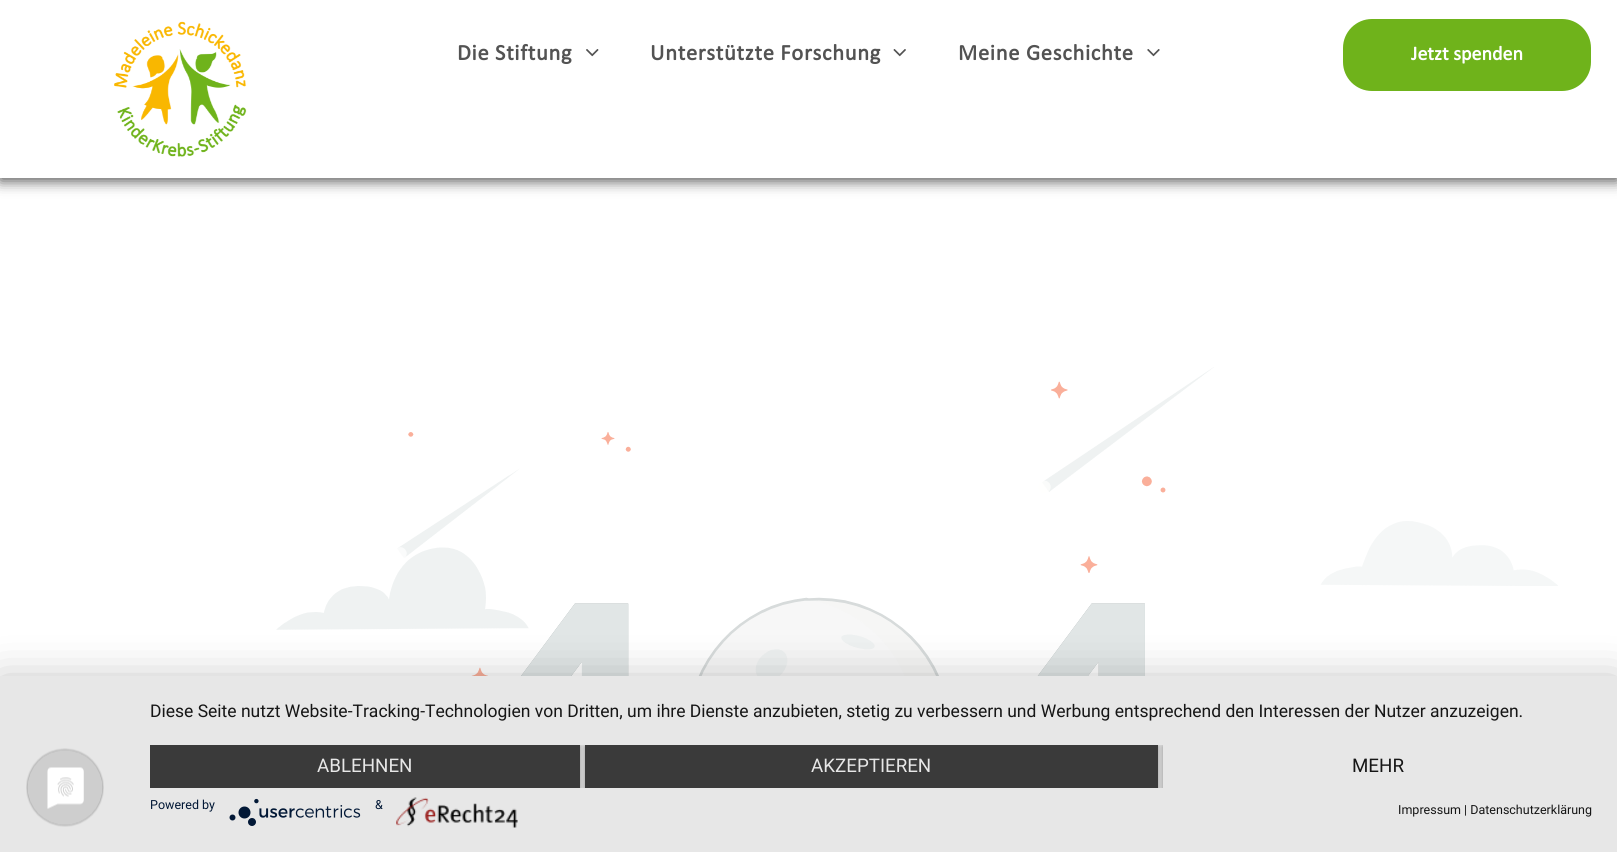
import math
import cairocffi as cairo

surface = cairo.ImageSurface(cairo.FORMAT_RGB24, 1617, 852)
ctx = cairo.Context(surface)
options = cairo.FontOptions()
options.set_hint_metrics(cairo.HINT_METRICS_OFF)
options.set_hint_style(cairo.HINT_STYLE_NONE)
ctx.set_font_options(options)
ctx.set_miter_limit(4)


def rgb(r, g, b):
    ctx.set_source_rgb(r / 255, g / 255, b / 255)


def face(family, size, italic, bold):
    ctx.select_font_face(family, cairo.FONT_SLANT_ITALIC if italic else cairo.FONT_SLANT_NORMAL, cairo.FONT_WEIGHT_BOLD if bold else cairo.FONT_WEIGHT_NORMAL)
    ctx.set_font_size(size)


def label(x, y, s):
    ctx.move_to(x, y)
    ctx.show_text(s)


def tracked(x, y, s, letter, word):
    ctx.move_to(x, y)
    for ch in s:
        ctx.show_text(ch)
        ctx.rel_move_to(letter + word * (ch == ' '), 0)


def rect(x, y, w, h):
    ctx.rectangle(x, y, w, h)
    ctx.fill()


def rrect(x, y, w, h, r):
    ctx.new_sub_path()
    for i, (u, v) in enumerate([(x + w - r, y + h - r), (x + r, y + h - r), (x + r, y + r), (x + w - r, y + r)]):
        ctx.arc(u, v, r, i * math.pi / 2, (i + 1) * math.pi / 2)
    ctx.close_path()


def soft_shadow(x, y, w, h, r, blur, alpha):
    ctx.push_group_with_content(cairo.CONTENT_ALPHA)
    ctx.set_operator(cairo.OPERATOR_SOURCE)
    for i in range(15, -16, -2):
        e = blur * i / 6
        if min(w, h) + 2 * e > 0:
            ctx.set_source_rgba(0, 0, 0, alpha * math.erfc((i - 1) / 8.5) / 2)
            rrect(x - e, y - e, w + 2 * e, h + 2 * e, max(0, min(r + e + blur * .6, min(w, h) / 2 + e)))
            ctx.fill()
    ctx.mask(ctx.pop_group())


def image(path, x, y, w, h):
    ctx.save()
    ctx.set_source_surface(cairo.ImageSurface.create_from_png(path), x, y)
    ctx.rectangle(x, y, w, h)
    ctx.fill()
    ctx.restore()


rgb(255, 255, 255)
ctx.paint()
rgb(83, 83, 83)
soft_shadow(0, 4, 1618, 177, 0, 7, 1)
rgb(255, 255, 255)
rect(0, 0, 1617, 178)
image('image0.png', 114, 21, 133, 136)
face('Calibri', 22.5, 0, 1)
rgb(83, 83, 83)
tracked(457, 60, 'Die Stiftung', 0.7, 0)
image('image1.png', 586, 49, 13, 8)
tracked(650, 60, 'Unterstützte Forschung', 0.7, 0)
image('image2.png', 893, 49, 13, 8)
tracked(958, 60, 'Meine Geschichte', 0.7, 0)
image('image3.png', 1147, 49, 13, 8)
rgb(111, 179, 27)
rrect(1343, 19, 248, 72, 29)
ctx.fill()
face('Calibri', 20, 0, 1)
rgb(255, 255, 255)
label(1411, 60, 'Jetzt spenden')
image('image4.png', 276, 367, 1282, 309)
rgb(0, 0, 0)
soft_shadow(0, 684, 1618, 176, 0, 22.5, 0.3)
rgb(231, 231, 231)
rect(0, 676, 1617, 176)
image('image5.png', 26, 748, 78, 79)
face('Roboto', 17.5, 0, 0)
rgb(22, 22, 22)
label(150, 717, 'Diese Seite nutzt Website-Tracking-Technologien von Dritten, um ihre Dienste anzubieten, stetig zu verbessern und Werbung entsprechend den Interessen der Nutzer anzuzeigen.')
image('image7.png', 396, 797, 122, 31)
ctx.save()
ctx.rectangle(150, 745, 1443, 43)
ctx.clip()
rgb(0, 0, 0)
soft_shadow(150, 746, 430, 43, 0, 2.5, 0.4)
ctx.restore()
rgb(58, 58, 58)
rect(150, 745, 430, 43)
face('Roboto', 18.75, 0, 0)
rgb(231, 231, 231)
label(317, 772, 'ABLEHNEN')
ctx.save()
ctx.rectangle(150, 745, 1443, 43)
ctx.clip()
rgb(0, 0, 0)
soft_shadow(585, 746, 573, 43, 0, 2.5, 0.4)
ctx.restore()
rgb(58, 58, 58)
rect(585, 745, 573, 43)
rgb(231, 231, 231)
label(811, 772, 'AKZEPTIEREN')
ctx.save()
ctx.rectangle(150, 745, 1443, 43)
ctx.clip()
rgb(0, 0, 0)
soft_shadow(1163, 746, 430, 43, 0, 2.5, 0.4)
ctx.restore()
rect(1163, 745, 430, 43)
rgb(22, 22, 22)
label(1352, 772, 'MEHR')
face('Roboto', 12.5, 0, 0)
rgb(2, 24, 54)
label(150, 809, 'Powered by')
image('image6.png', 229, 798, 132, 28)
label(375, 809, '&')
rgb(22, 22, 22)
label(1398, 814, 'Impressum | Datenschutzerklärung')
surface.write_to_png('render.png')
